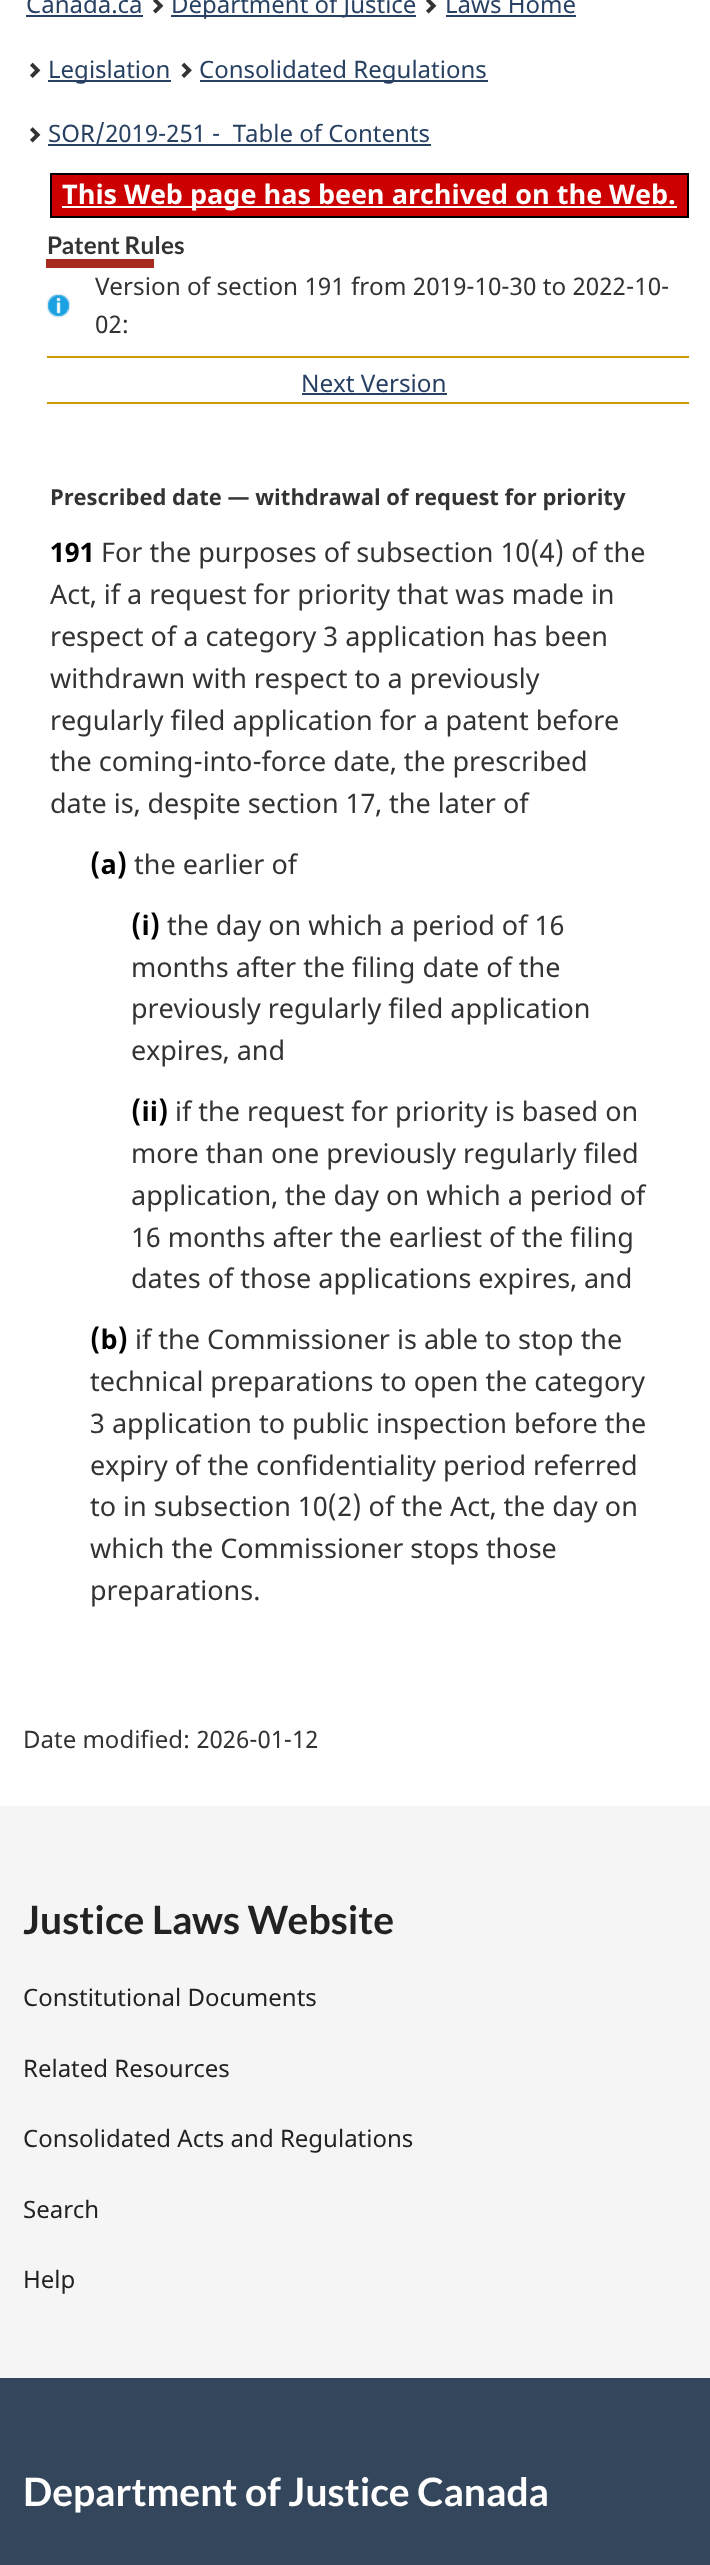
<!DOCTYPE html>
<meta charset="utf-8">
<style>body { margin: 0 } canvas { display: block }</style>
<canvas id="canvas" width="710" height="2565"></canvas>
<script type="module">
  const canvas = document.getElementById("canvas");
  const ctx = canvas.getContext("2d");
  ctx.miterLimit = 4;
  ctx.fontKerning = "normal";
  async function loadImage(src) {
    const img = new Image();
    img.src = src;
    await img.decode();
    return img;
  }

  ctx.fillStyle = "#ffffff";
  ctx.fillRect(0, 0, 710, 2565);
  ctx.font = "24px Noto Sans";
  ctx.fillStyle = "#284162";
  ctx.fillText("Canada.ca", 26, 13);
  ctx.fillRect(26, 15, 117, 2);
  ctx.drawImage(await loadImage("img1.png"), 153, 0, 11, 14);
  ctx.fillRect(171, 15, 245, 2);
  ctx.fillText("Department of Justice", 171, 13);
  ctx.drawImage(await loadImage("img1.png"), 426, 0, 11, 14);
  ctx.fillText("Laws Home", 445, 13);
  ctx.fillRect(446, 15, 130, 2);
  ctx.drawImage(await loadImage("img2.png"), 30, 62, 11, 16);
  ctx.fillRect(48, 80, 123, 2);
  ctx.fillText("Legislation", 48, 78);
  ctx.drawImage(await loadImage("img3.png"), 181, 62, 11, 16);
  ctx.fillRect(200, 80, 288, 2);
  ctx.fillText("Consolidated Regulations", 199, 78);
  ctx.drawImage(await loadImage("img4.png"), 30, 127, 11, 16);
  ctx.fillRect(48, 144, 383, 2);
  ctx.fillText("SOR/2019-251 -  Table of Contents", 48, 142);
  ctx.fillStyle = "#cc0000";
  ctx.beginPath();
  ctx.rect(51, 174, 637, 43);
  ctx.fill();
  ctx.strokeStyle = "#000000";
  ctx.lineWidth = 2;
  ctx.stroke();
  ctx.fillStyle = "#ffffff";
  ctx.fillRect(62, 206, 615, 2);
  ctx.font = "bold 27px Noto Sans";
  ctx.fillText("This Web page has been archived on the Web.", 62, 204);
  ctx.fillStyle = "#a62a1e";
  ctx.fillRect(46, 259, 108, 9);
  ctx.font = "bold 24.3px Lato";
  ctx.fillStyle = "#333333";
  ctx.fillText("Patent Rules", 47, 254);
  ctx.drawImage(await loadImage("img5.png"), 46, 293, 25, 25);
  ctx.font = "24.3px Noto Sans";
  ctx.fillText("Version of section 191 from 2019-10-30 to 2022-10-", 95, 295);
  ctx.fillText("02:", 95, 333);
  ctx.fillStyle = "#cc9900";
  ctx.fillRect(47, 356, 642, 2);
  ctx.fillRect(47, 402, 642, 2);
  ctx.fillStyle = "#284162";
  ctx.fillText("Next Version", 301, 392);
  ctx.fillRect(302, 393, 145, 2);
  ctx.font = "bold 22px Noto Sans";
  ctx.fillStyle = "#333333";
  ctx.fillText("Prescribed date — withdrawal of request for priority", 50, 505);
  ctx.font = "bold 27px Noto Sans";
  ctx.fillStyle = "#000000";
  ctx.fillText("191", 50, 562);
  ctx.font = "27px Noto Sans";
  ctx.fillStyle = "#333333";
  ctx.fillText("For the purposes of subsection 10(4) of the", 101, 562);
  ctx.fillText("Act, if a request for priority that was made in", 50, 604);
  ctx.fillText("respect of a category 3 application has been", 50, 646);
  ctx.fillText("withdrawn with respect to a previously", 50, 688);
  ctx.fillText("regularly filed application for a patent before", 50, 730);
  ctx.fillText("the coming-into-force date, the prescribed", 50, 771);
  ctx.fillText("date is, despite section 17, the later of", 50, 813);
  ctx.font = "bold 27px Noto Sans";
  ctx.fillStyle = "#000000";
  ctx.fillText("(a)", 90, 874);
  ctx.font = "27px Noto Sans";
  ctx.fillStyle = "#333333";
  ctx.fillText("the earlier of", 134, 874);
  ctx.font = "bold 27px Noto Sans";
  ctx.fillStyle = "#000000";
  ctx.fillText("(i)", 131, 935);
  ctx.font = "27px Noto Sans";
  ctx.fillStyle = "#333333";
  ctx.fillText("the day on which a period of 16", 167, 935);
  ctx.fillText("months after the filing date of the", 131, 977);
  ctx.fillText("previously regularly filed application", 131, 1018);
  ctx.fillText("expires, and", 131, 1060);
  ctx.font = "bold 27px Noto Sans";
  ctx.fillStyle = "#000000";
  ctx.fillText("(ii)", 131, 1121);
  ctx.font = "27px Noto Sans";
  ctx.fillStyle = "#333333";
  ctx.fillText("if the request for priority is based on", 175, 1121);
  ctx.fillText("more than one previously regularly filed", 131, 1163);
  ctx.fillText("application, the day on which a period of", 131, 1205);
  ctx.fillText("16 months after the earliest of the filing", 131, 1247);
  ctx.fillText("dates of those applications expires, and", 131, 1288);
  ctx.font = "bold 27px Noto Sans";
  ctx.fillStyle = "#000000";
  ctx.fillText("(b)", 90, 1349);
  ctx.font = "27px Noto Sans";
  ctx.fillStyle = "#333333";
  ctx.fillText("if the Commissioner is able to stop the", 135, 1349);
  ctx.fillText("technical preparations to open the category", 90, 1391);
  ctx.fillText("3 application to public inspection before the", 90, 1433);
  ctx.fillText("expiry of the confidentiality period referred", 90, 1475);
  ctx.fillText("to in subsection 10(2) of the Act, the day on", 90, 1516);
  ctx.fillText("which the Commissioner stops those", 90, 1558);
  ctx.fillText("preparations.", 90, 1600);
  ctx.font = "24px Noto Sans";
  ctx.fillText("Date modified: 2026-01-12", 23, 1748);
  ctx.fillStyle = "#f5f5f5";
  ctx.fillRect(0, 1806, 710, 572);
  ctx.font = "bold 39px Lato";
  ctx.fillStyle = "#222222";
  ctx.fillText("Justice Laws Website", 23, 1934);
  ctx.font = "24px Noto Sans";
  ctx.fillText("Constitutional Documents", 23, 2006);
  ctx.fillText("Related Resources", 23, 2077);
  ctx.fillText("Consolidated Acts and Regulations", 23, 2147);
  ctx.fillText("Search", 23, 2218);
  ctx.fillText("Help", 23, 2288);
  ctx.fillStyle = "#33465c";
  ctx.fillRect(0, 2378, 710, 187);
  ctx.font = "bold 39px Lato";
  ctx.fillStyle = "#ffffff";
  ctx.fillText("Department of Justice Canada", 23, 2506);
</script>
